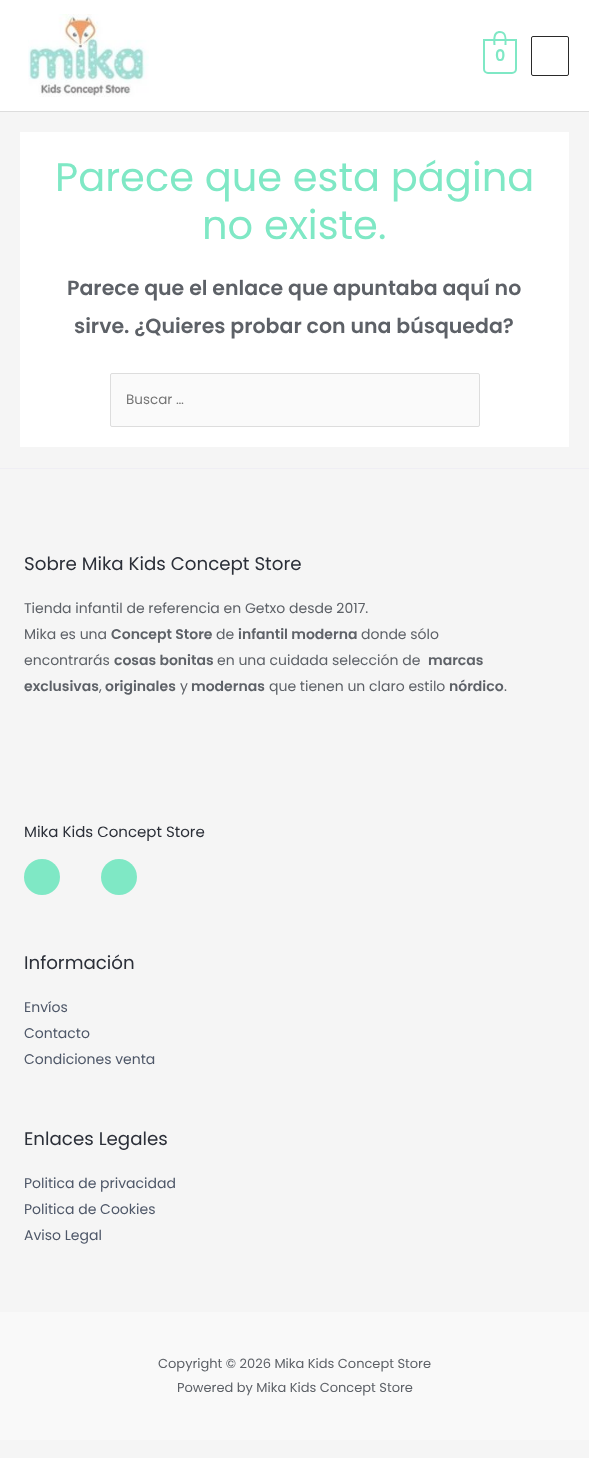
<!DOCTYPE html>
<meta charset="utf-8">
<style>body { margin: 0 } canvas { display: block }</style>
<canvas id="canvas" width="589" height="1458"></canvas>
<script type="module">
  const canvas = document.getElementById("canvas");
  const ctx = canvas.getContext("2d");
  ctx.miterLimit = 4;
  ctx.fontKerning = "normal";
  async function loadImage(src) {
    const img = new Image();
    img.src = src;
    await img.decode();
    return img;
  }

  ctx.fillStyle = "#f5f5f5";
  ctx.fillRect(0, 0, 589, 1458);
  ctx.fillStyle = "#ffffff";
  ctx.fillRect(0, 0, 589, 111);
  ctx.fillStyle = "#dddddd";
  ctx.fillRect(0, 111, 589, 1);
  ctx.drawImage(await loadImage("img1.png"), 28, 14, 121, 83);
  ctx.beginPath();
  ctx.roundRect(484, 40, 32, 33, [0, 0, 4, 4]);
  ctx.strokeStyle = "#7fe8c5";
  ctx.lineWidth = 2;
  ctx.stroke();
  ctx.fillStyle = "#7fe8c5";
  ctx.beginPath();
  ctx.moveTo(500, 31);
  ctx.bezierCurveTo(507.5, 31, 506.5, 40, 506.5, 45);
  ctx.lineTo(493.5, 45);
  ctx.bezierCurveTo(493.5, 40, 492, 31, 500, 31);
  ctx.closePath();
  ctx.moveTo(500, 33);
  ctx.bezierCurveTo(506, 33, 504.5, 41, 504.5, 45);
  ctx.lineTo(495.5, 45);
  ctx.bezierCurveTo(495.5, 41, 494, 33, 500, 33);
  ctx.closePath();
  ctx.fill("evenodd");
  ctx.font = "600 16px Poppins";
  ctx.fillText("0", 495, 61);
  ctx.beginPath();
  ctx.roundRect(531.5, 36.5, 37, 39, 1.5);
  ctx.strokeStyle = "#2a2a2a";
  ctx.lineWidth = 1;
  ctx.stroke();
  ctx.fillStyle = "#ffffff";
  ctx.fillRect(20, 132, 549, 315);
  ctx.font = "40px Poppins";
  ctx.fillStyle = "#7fe8c5";
  ctx.fillText("Parece que esta página", 55, 191);
  ctx.fillText("no existe.", 202, 239);
  ctx.font = "600 20.5px Poppins";
  ctx.fillStyle = "#5d6167";
  ctx.fillText("Parece que el enlace que apuntaba aquí no", 67, 295);
  ctx.fillText("sirve. ¿Quieres probar con una búsqueda?", 74, 333);
  ctx.fillStyle = "#fafafa";
  ctx.beginPath();
  ctx.roundRect(110.5, 373.5, 369, 53, 1.5);
  ctx.fill();
  ctx.strokeStyle = "#dddddd";
  ctx.stroke();
  ctx.font = "13.5px Poppins";
  ctx.fillStyle = "#757575";
  ctx.fillText("Buscar …", 126, 404);
  ctx.fillStyle = "#efeef4";
  ctx.fillRect(0, 468, 589, 1);
  ctx.font = "18.25px Poppins";
  ctx.fillStyle = "#2b2f38";
  ctx.fillText("Sobre Mika Kids Concept Store", 24, 570);
  ctx.font = "14px Poppins";
  ctx.fillStyle = "#5d6167";
  ctx.fillText("Tienda infantil de referencia en Getxo desde 2017.", 24, 613);
  ctx.fillText("Mika es una", 24, 639);
  ctx.font = "600 14px Poppins";
  ctx.fillText("Concept Store", 111, 639);
  ctx.font = "14px Poppins";
  ctx.fillText("de", 216, 639);
  ctx.font = "600 14px Poppins";
  ctx.fillText("infantil moderna", 238, 639);
  ctx.font = "14px Poppins";
  ctx.fillText("donde sólo", 361, 639);
  ctx.fillText("encontrarás", 24, 665);
  ctx.font = "600 14px Poppins";
  ctx.fillText("cosas bonitas", 114, 665);
  ctx.font = "14px Poppins";
  ctx.fillText("en una cuidada selección de", 217, 665);
  ctx.font = "600 14px Poppins";
  ctx.fillText("marcas", 428, 665);
  ctx.fillText("exclusivas", 24, 691);
  ctx.font = "14px Poppins";
  ctx.fillText(",", 99, 691);
  ctx.font = "600 14px Poppins";
  ctx.fillText("originales", 105, 691);
  ctx.font = "14px Poppins";
  ctx.fillText("y", 180, 691);
  ctx.font = "600 14px Poppins";
  ctx.fillText("modernas", 191, 691);
  ctx.font = "14px Poppins";
  ctx.fillText("que tienen un claro estilo", 269, 691);
  ctx.font = "600 14px Poppins";
  ctx.fillText("nórdico", 449, 691);
  ctx.font = "14px Poppins";
  ctx.fillText(".", 504, 691);
  ctx.font = "15px Poppins";
  ctx.fillStyle = "#2b2f38";
  ctx.fillText("Mika Kids Concept Store", 24, 837);
  ctx.fillStyle = "#7fe8c5";
  ctx.beginPath();
  ctx.arc(42, 877, 18, 0, Math.PI * 2);
  ctx.fill();
  ctx.beginPath();
  ctx.arc(119, 877, 18, 0, Math.PI * 2);
  ctx.fill();
  ctx.font = "18.25px Poppins";
  ctx.fillStyle = "#2b2f38";
  ctx.fillText("Información", 24, 969);
  ctx.font = "14px Poppins";
  ctx.fillStyle = "#4e5768";
  ctx.fillText("Envíos", 24, 1012);
  ctx.fillText("Contacto", 24, 1038);
  ctx.fillText("Condiciones venta", 24, 1064);
  ctx.font = "18.25px Poppins";
  ctx.fillStyle = "#2b2f38";
  ctx.fillText("Enlaces Legales", 24, 1145);
  ctx.font = "14px Poppins";
  ctx.fillStyle = "#4e5768";
  ctx.fillText("Politica de privacidad", 24, 1188);
  ctx.fillText("Politica de Cookies", 24, 1214);
  ctx.fillText("Aviso Legal", 24, 1240);
  ctx.fillStyle = "#f9f9f9";
  ctx.fillRect(0, 1312, 589, 128);
  ctx.font = "13px Poppins";
  ctx.fillStyle = "#5d6167";
  ctx.fillText("Copyright © 2026 Mika Kids Concept Store", 158, 1368);
  ctx.fillText("Powered by Mika Kids Concept Store", 177, 1392);
</script>
